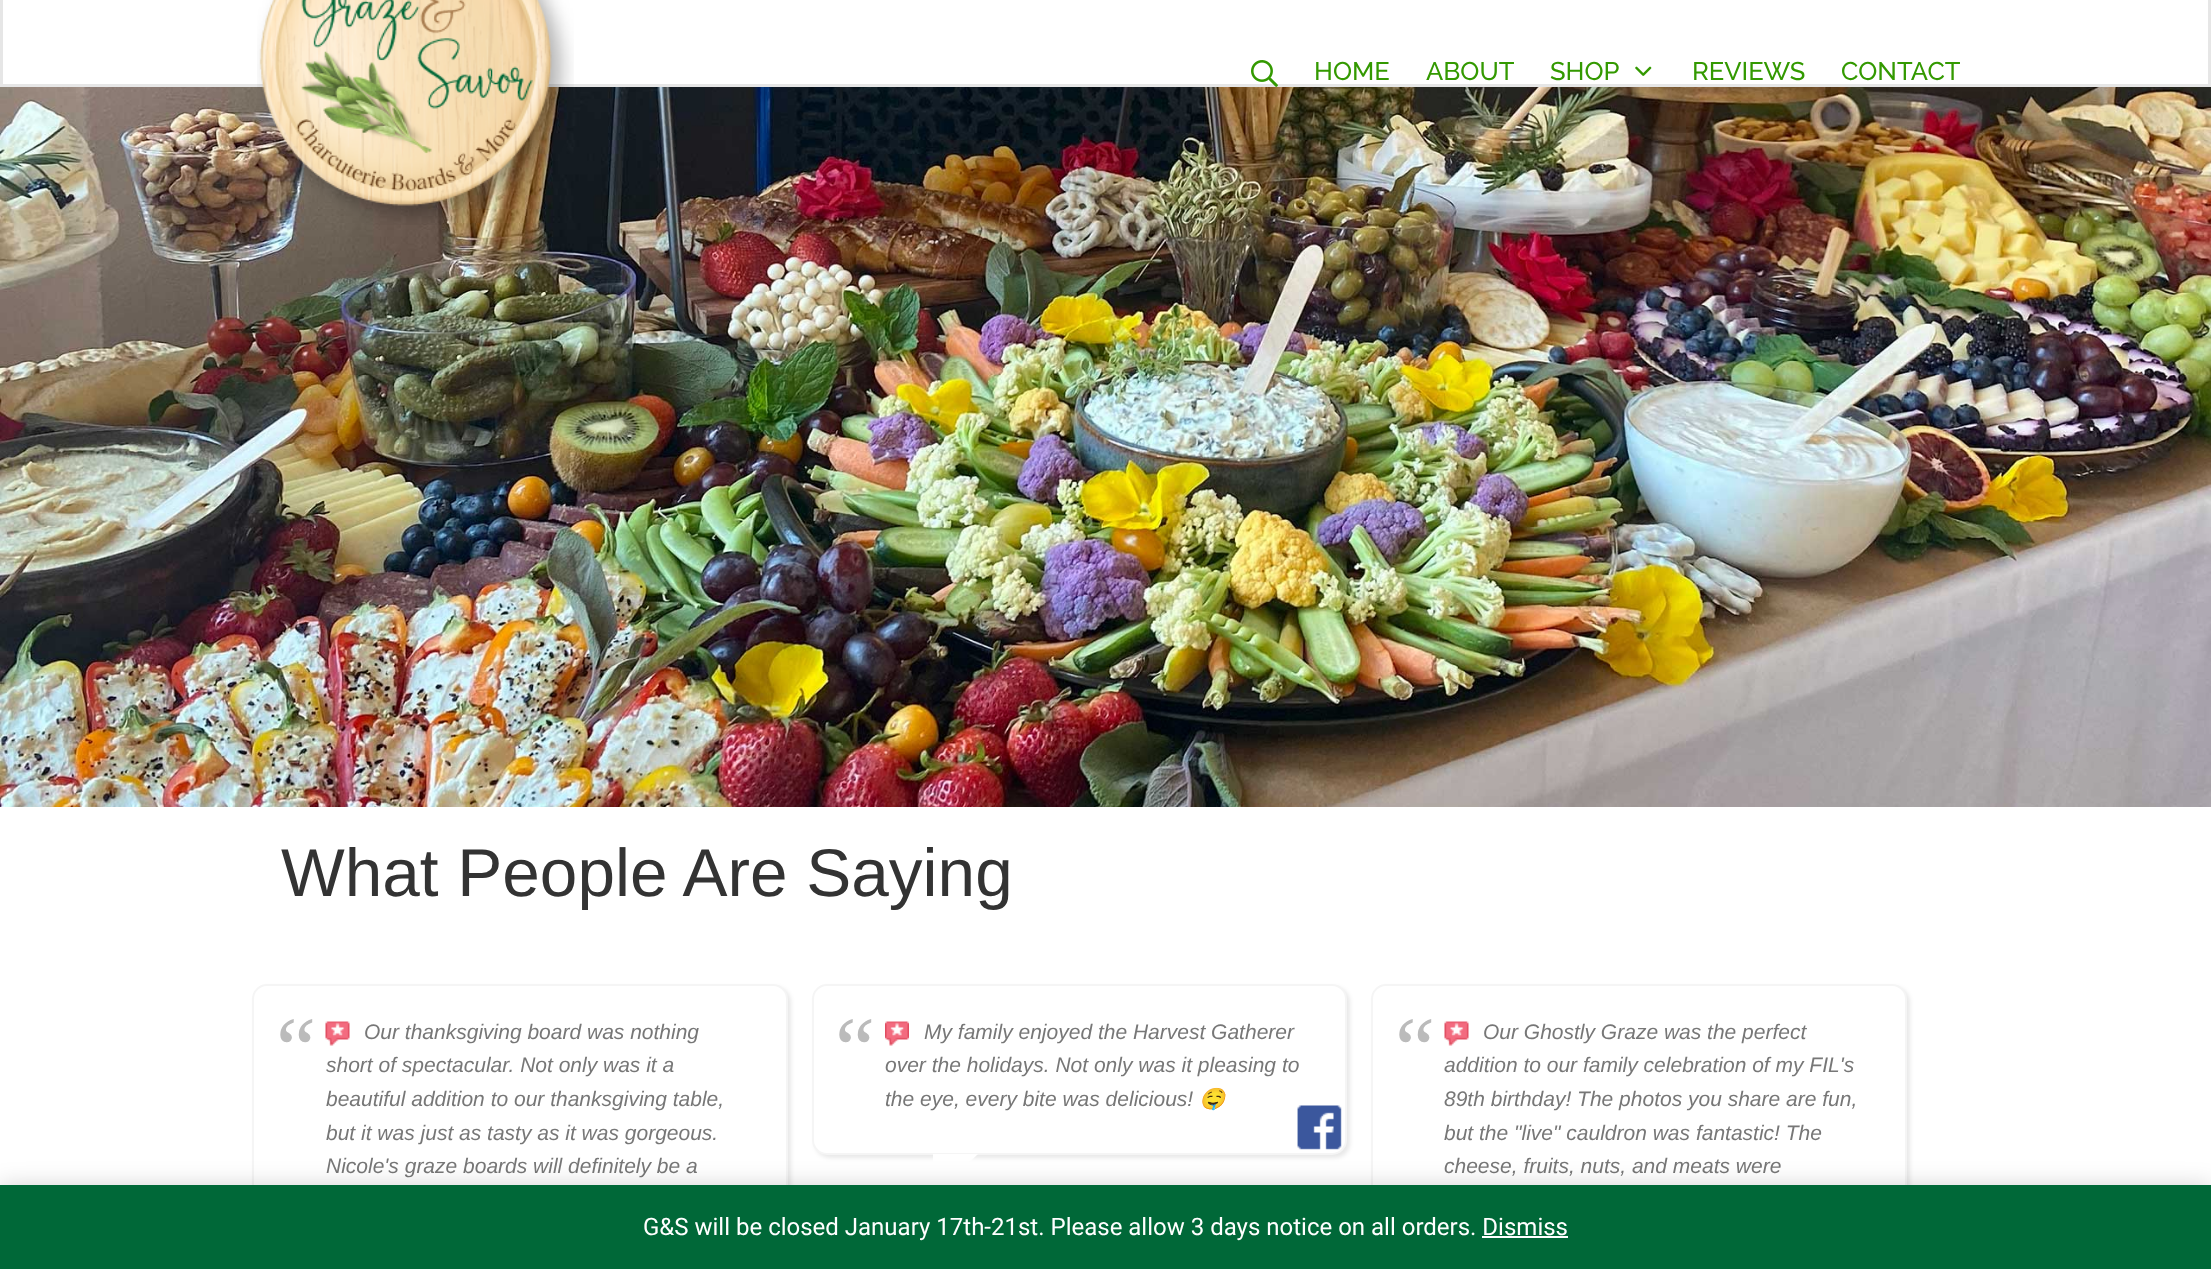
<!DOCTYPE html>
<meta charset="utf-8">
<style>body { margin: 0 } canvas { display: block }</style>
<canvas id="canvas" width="2211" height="1269"></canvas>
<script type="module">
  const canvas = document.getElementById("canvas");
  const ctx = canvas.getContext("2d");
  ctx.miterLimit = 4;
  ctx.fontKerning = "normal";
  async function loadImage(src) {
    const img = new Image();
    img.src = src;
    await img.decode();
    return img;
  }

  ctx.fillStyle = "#ffffff";
  ctx.fillRect(0, 0, 2211, 1269);
  ctx.strokeStyle = "#e6e6e6";
  ctx.lineWidth = 3;
  ctx.strokeRect(1.5, -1.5, 2208, 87);
  ctx.drawImage(await loadImage("img4.png"), 0, 87, 2211, 720);
  ctx.drawImage(await loadImage("img1.png"), 257, 0, 317, 225);
  ctx.drawImage(await loadImage("img2.png"), 1251, 60, 27, 27);
  ctx.font = "500 25.5px Raleway";
  ctx.fillStyle = "#339900";
  ctx.fillText("HOME", 1314, 80);
  ctx.fillText("ABOUT", 1426, 80);
  ctx.fillText("SHOP", 1550, 80);
  ctx.drawImage(await loadImage("img3.png"), 1635, 66, 17, 10);
  ctx.fillText("REVIEWS", 1692, 80);
  ctx.fillText("CONTACT", 1841, 80);
  ctx.font = "67.5px Liberation Sans";
  ctx.fillStyle = "#333333";
  ctx.fillText("What People Are Saying", 281, 896);
  ctx.fillStyle = "rgba(0, 0, 0, 0.09)";
  ctx.filter = "blur(2px)";
  ctx.beginPath();
  ctx.roundRect(255, 987, 536, 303, 15);
  ctx.fill();
  ctx.filter = "none";
  ctx.fillStyle = "#ffffff";
  ctx.beginPath();
  ctx.roundRect(253, 985, 534, 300, 14);
  ctx.fill();
  ctx.strokeStyle = "#f5f5f5";
  ctx.lineWidth = 2;
  ctx.stroke();
  ctx.font = "90px Liberation Serif";
  ctx.fillStyle = "#bbbbbb";
  ctx.fillText("“", 276, 1079);
  ctx.drawImage(await loadImage("img5.png"), 325, 1021, 25, 25);
  ctx.font = "italic 21px Liberation Sans";
  ctx.fillStyle = "#777777";
  ctx.fillText("Our thanksgiving board was nothing", 364, 1039);
  ctx.fillText("short of spectacular. Not only was it a", 326, 1072);
  ctx.fillText("beautiful addition to our thanksgiving table,", 326, 1106);
  ctx.fillText("but it was just as tasty as it was gorgeous.", 326, 1140);
  ctx.fillText("Nicole's graze boards will definitely be a", 326, 1173);
  ctx.fillStyle = "rgba(0, 0, 0, 0.09)";
  ctx.filter = "blur(2px)";
  ctx.beginPath();
  ctx.roundRect(815, 987, 535, 171, 15);
  ctx.fill();
  ctx.filter = "none";
  ctx.fillStyle = "#ffffff";
  ctx.beginPath();
  ctx.roundRect(813, 985, 533, 169, 14);
  ctx.fill();
  ctx.stroke();
  ctx.font = "90px Liberation Serif";
  ctx.fillStyle = "#bbbbbb";
  ctx.fillText("“", 835, 1079);
  ctx.drawImage(await loadImage("img6.png"), 885, 1021, 24, 25);
  ctx.font = "italic 21px Liberation Sans";
  ctx.fillStyle = "#777777";
  ctx.fillText("My family enjoyed the Harvest Gatherer", 924, 1039);
  ctx.fillText("over the holidays. Not only was it pleasing to", 885, 1072);
  ctx.fillText("the eye, every bite was delicious!", 885, 1106);
  ctx.font = "italic 21px Noto Color Emoji";
  ctx.fillText("🤤", 1199, 1106);
  ctx.drawImage(await loadImage("img7.png"), 1297, 1105, 45, 45);
  ctx.fillStyle = "#ffffff";
  ctx.beginPath();
  ctx.moveTo(933, 1154);
  ctx.lineTo(978, 1154);
  ctx.lineTo(933, 1198);
  ctx.closePath();
  ctx.fill();
  ctx.fillStyle = "rgba(0, 0, 0, 0.09)";
  ctx.filter = "blur(2px)";
  ctx.beginPath();
  ctx.roundRect(1374, 987, 536, 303, 15);
  ctx.fill();
  ctx.filter = "none";
  ctx.fillStyle = "#ffffff";
  ctx.beginPath();
  ctx.roundRect(1372, 985, 534, 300, 14);
  ctx.fill();
  ctx.stroke();
  ctx.font = "90px Liberation Serif";
  ctx.fillStyle = "#bbbbbb";
  ctx.fillText("“", 1395, 1079);
  ctx.drawImage(await loadImage("img8.png"), 1444, 1021, 25, 25);
  ctx.font = "italic 21px Liberation Sans";
  ctx.fillStyle = "#777777";
  ctx.fillText("Our Ghostly Graze was the perfect", 1483, 1039);
  ctx.fillText("addition to our family celebration of my FIL's", 1444, 1072);
  ctx.fillText("89th birthday! The photos you share are fun,", 1444, 1106);
  ctx.fillText("but the \"live\" cauldron was fantastic! The", 1444, 1140);
  ctx.fillText("cheese, fruits, nuts, and meats were", 1444, 1173);
  ctx.fillStyle = "rgba(0, 0, 0, 0.2)";
  ctx.filter = "blur(12px)";
  ctx.beginPath();
  ctx.rect(0, 1187, 2211, 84);
  ctx.fill();
  ctx.filter = "none";
  ctx.fillStyle = "#006838";
  ctx.fillRect(0, 1185, 2211, 84);
  ctx.font = "24px Roboto";
  ctx.fillStyle = "#ffffff";
  ctx.fillText("G&S will be closed January 17th-21st. Please allow 3 days notice on all orders. Dismiss", 643, 1235);
  ctx.fillRect(1482, 1236, 86, 2);
</script>
